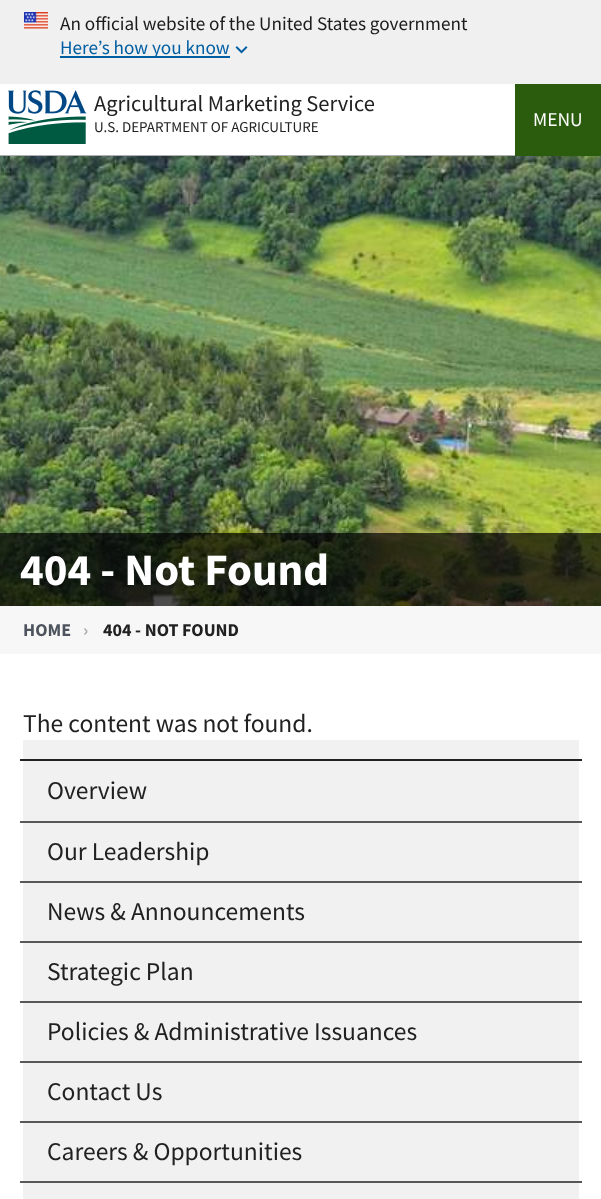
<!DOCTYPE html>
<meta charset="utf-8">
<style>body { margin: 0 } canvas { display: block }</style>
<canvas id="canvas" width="601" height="1199"></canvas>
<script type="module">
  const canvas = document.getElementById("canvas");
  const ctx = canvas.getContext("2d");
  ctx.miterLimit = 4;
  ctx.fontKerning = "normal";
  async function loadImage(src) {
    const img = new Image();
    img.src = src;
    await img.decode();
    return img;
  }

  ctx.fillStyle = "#ffffff";
  ctx.fillRect(0, 0, 601, 1199);
  ctx.fillStyle = "#f0f0f0";
  ctx.fillRect(0, 0, 601, 84);
  ctx.drawImage(await loadImage("img1.png"), 24, 12, 24, 17);
  ctx.font = "19.2px Source Sans Pro";
  ctx.fillStyle = "#1b1b1b";
  ctx.fillText("An official website of the United States government", 60, 30);
  ctx.fillStyle = "#005ea2";
  ctx.fillRect(60, 56, 170, 2);
  ctx.fillText("Here’s how you know", 60, 54);
  ctx.drawImage(await loadImage("img2.png"), 235, 46, 13, 8);
  ctx.fillStyle = "#aeb0b5";
  ctx.fillRect(0, 155, 515, 1);
  ctx.drawImage(await loadImage("img3.png"), 8, 90, 79, 54);
  ctx.font = "22.5px Source Sans Pro";
  ctx.fillStyle = "#212121";
  ctx.fillText("Agricultural Marketing Service", 94, 111);
  ctx.font = "15px Source Sans Pro";
  ctx.fillText("U.S. DEPARTMENT OF AGRICULTURE", 94, 132);
  ctx.fillStyle = "#2b5c0d";
  ctx.fillRect(515, 84, 86, 72);
  ctx.font = "19.5px Source Sans Pro";
  ctx.fillStyle = "#ffffff";
  ctx.fillText("MENU", 533, 126);
  ctx.drawImage(await loadImage("img4.png"), 0, 156, 601, 450);
  ctx.fillStyle = "rgba(0, 0, 0, 0.7)";
  ctx.fillRect(0, 533, 601, 73);
  ctx.font = "bold 45px Source Sans Pro";
  ctx.fillStyle = "#ffffff";
  ctx.fillText("404 - Not Found", 20, 585);
  ctx.fillStyle = "#f7f7f7";
  ctx.fillRect(0, 606, 601, 48);
  ctx.font = "bold 18px Source Sans Pro";
  ctx.fillStyle = "#4e545e";
  ctx.fillText("HOME", 23, 636);
  ctx.fillStyle = "#aeb0b5";
  ctx.fillText("›", 83, 636);
  ctx.fillStyle = "#212121";
  ctx.fillText("404 - NOT FOUND", 103, 636);
  ctx.font = "25.5px Source Sans Pro";
  ctx.fillText("The content was not found.", 23, 732);
  ctx.fillStyle = "#f1f1f1";
  ctx.fillRect(23, 740, 556, 459);
  ctx.fillStyle = "#212121";
  ctx.fillRect(20, 759, 562, 2);
  ctx.fillText("Overview", 47, 799);
  ctx.fillStyle = "#575757";
  ctx.fillRect(20, 821, 562, 2);
  ctx.fillStyle = "#212121";
  ctx.fillText("Our Leadership", 47, 860);
  ctx.fillStyle = "#575757";
  ctx.fillRect(20, 881, 562, 2);
  ctx.fillStyle = "#212121";
  ctx.fillText("News & Announcements", 47, 920);
  ctx.fillStyle = "#575757";
  ctx.fillRect(20, 941, 562, 2);
  ctx.fillStyle = "#212121";
  ctx.fillText("Strategic Plan", 47, 980);
  ctx.fillStyle = "#575757";
  ctx.fillRect(20, 1001, 562, 2);
  ctx.fillStyle = "#212121";
  ctx.fillText("Policies & Administrative Issuances", 47, 1040);
  ctx.fillStyle = "#575757";
  ctx.fillRect(20, 1061, 562, 2);
  ctx.fillStyle = "#212121";
  ctx.fillText("Contact Us", 47, 1100);
  ctx.fillStyle = "#575757";
  ctx.fillRect(20, 1121, 562, 2);
  ctx.fillStyle = "#212121";
  ctx.fillText("Careers & Opportunities", 47, 1160);
  ctx.fillStyle = "#575757";
  ctx.fillRect(20, 1181, 562, 2);
</script>
